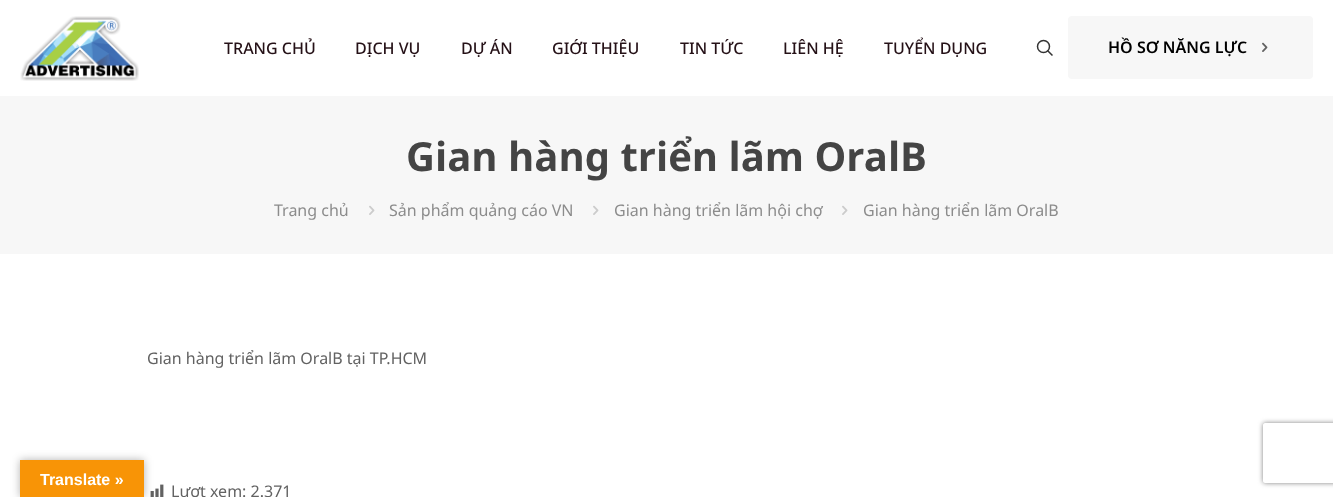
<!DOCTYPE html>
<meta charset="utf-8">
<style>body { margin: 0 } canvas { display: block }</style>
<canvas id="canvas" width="1333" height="497"></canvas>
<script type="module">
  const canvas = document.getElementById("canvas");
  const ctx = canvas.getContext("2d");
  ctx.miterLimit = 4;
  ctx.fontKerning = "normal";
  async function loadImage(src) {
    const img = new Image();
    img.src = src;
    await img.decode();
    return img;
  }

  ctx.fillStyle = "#ffffff";
  ctx.fillRect(0, 0, 1333, 497);
  ctx.drawImage(await loadImage("img4.png"), 150, 484, 14, 13);
  ctx.fillStyle = "rgba(0, 0, 0, 0.3)";
  ctx.filter = "blur(4.5px)";
  ctx.beginPath();
  ctx.rect(20, 460, 124, 37);
  ctx.fill();
  ctx.filter = "none";
  ctx.fillStyle = "#f89406";
  ctx.fillRect(20, 460, 124, 37);
  ctx.font = "bold 16px Liberation Sans";
  ctx.fillStyle = "#ffffff";
  ctx.fillText("Translate »", 40, 485);
  ctx.drawImage(await loadImage("img1.png"), 20, 16, 119, 65);
  ctx.font = "500 16px Noto Sans";
  ctx.fillStyle = "#251117";
  ctx.fillText("TRANG CHỦ", 224, 54);
  ctx.fillText("DỊCH VỤ", 355, 54);
  ctx.fillText("DỰ ÁN", 461, 54);
  ctx.fillText("GIỚI THIỆU", 552, 54);
  ctx.fillText("TIN TỨC", 680, 54);
  ctx.fillText("LIÊN HỆ", 783, 54);
  ctx.fillText("TUYỂN DỤNG", 884, 54);
  ctx.beginPath();
  ctx.arc(1043.5, 46.5, 6, 0, Math.PI * 2);
  ctx.strokeStyle = "#333333";
  ctx.lineWidth = 1.5;
  ctx.stroke();
  ctx.beginPath();
  ctx.moveTo(1047.5, 50.5);
  ctx.lineTo(1052.5, 55.5);
  ctx.stroke();
  ctx.fillStyle = "#f7f7f7";
  ctx.beginPath();
  ctx.roundRect(1068, 16, 245, 63, 4);
  ctx.fill();
  ctx.font = "600 16px Noto Sans";
  ctx.fillStyle = "#000000";
  ctx.fillText("HỒ SƠ NĂNG LỰC", 1108, 53);
  ctx.drawImage(await loadImage("img2.png"), 1262, 42, 6, 10);
  ctx.fillStyle = "#f7f7f7";
  ctx.fillRect(0, 96, 1333, 158);
  ctx.font = "bold 40px Noto Sans";
  ctx.fillStyle = "#444444";
  ctx.fillText("Gian hàng triển lãm OralB", 406, 171);
  ctx.font = "16px Noto Sans";
  ctx.fillStyle = "#8c8c8c";
  ctx.fillText("Trang chủ", 274, 216);
  ctx.drawImage(await loadImage("img3.png"), 369, 205, 6, 10);
  ctx.fillText("Sản phẩm quảng cáo VN", 389, 216);
  ctx.drawImage(await loadImage("img3.png"), 593, 205, 6, 10);
  ctx.fillText("Gian hàng triển lãm hội chợ", 614, 216);
  ctx.drawImage(await loadImage("img3.png"), 842, 205, 6, 10);
  ctx.fillText("Gian hàng triển lãm OralB", 863, 216);
  ctx.fillStyle = "#626262";
  ctx.fillText("Gian hàng triển lãm OralB tại TP.HCM", 147, 364);
  ctx.fillText("Lượt xem: 2.371", 171, 497);
  ctx.save();
  ctx.beginPath();
  ctx.moveTo(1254, 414);
  ctx.lineTo(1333, 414);
  ctx.lineTo(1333, 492);
  ctx.lineTo(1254, 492);
  ctx.closePath();
  ctx.moveTo(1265, 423);
  ctx.lineTo(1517, 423);
  ctx.bezierCurveTo(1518, 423, 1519, 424, 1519, 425);
  ctx.lineTo(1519, 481);
  ctx.bezierCurveTo(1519, 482, 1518, 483, 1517, 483);
  ctx.lineTo(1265, 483);
  ctx.bezierCurveTo(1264, 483, 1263, 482, 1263, 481);
  ctx.lineTo(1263, 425);
  ctx.bezierCurveTo(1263, 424, 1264, 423, 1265, 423);
  ctx.closePath();
  ctx.clip("evenodd");
  ctx.fillStyle = "#808080";
  ctx.filter = "blur(2.5px)";
  ctx.beginPath();
  ctx.roundRect(1263, 423, 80, 60, 2);
  ctx.fill();
  ctx.filter = "none";
  ctx.restore();
</script>
